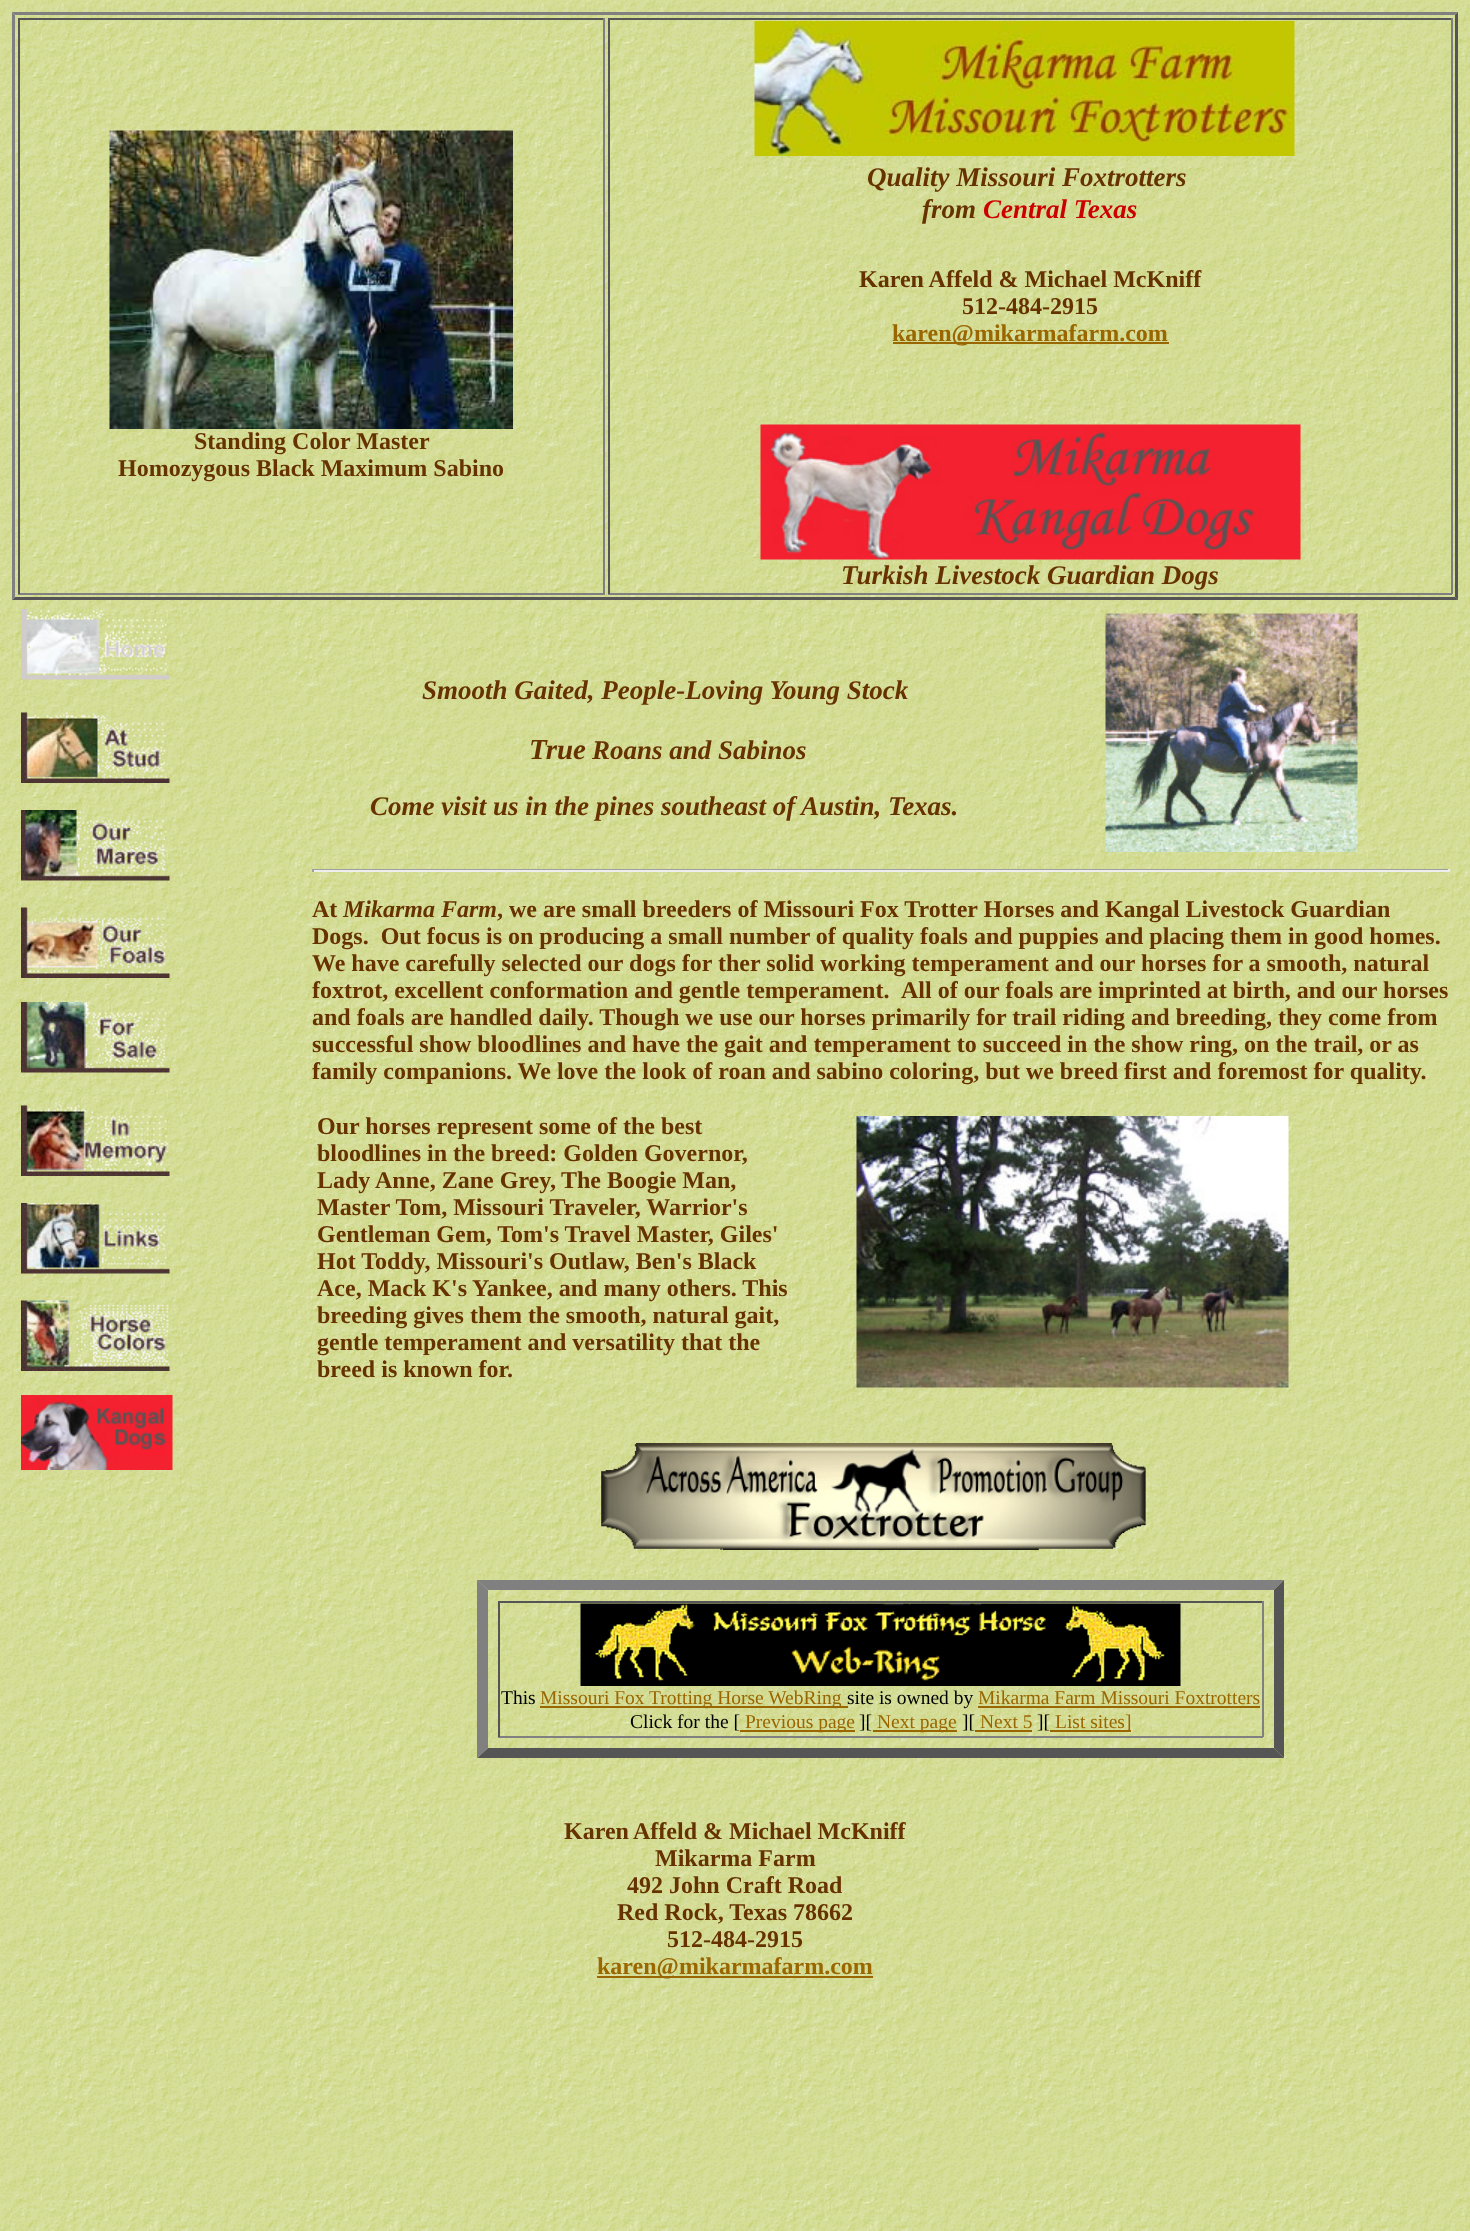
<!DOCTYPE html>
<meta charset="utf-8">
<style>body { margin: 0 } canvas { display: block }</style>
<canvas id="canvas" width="1470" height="2231"></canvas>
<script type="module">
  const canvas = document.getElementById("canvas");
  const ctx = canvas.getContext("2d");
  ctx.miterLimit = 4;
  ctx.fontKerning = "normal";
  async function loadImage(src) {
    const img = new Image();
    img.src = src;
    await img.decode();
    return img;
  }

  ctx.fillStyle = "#ffffff";
  ctx.fillRect(0, 0, 1470, 2231);
  ctx.drawImage(await loadImage("img1.png"), 0, 0, 1470, 2231);
  ctx.fillStyle = "#808080";
  ctx.beginPath();
  ctx.moveTo(12, 12);
  ctx.lineTo(1458, 12);
  ctx.lineTo(1455, 15);
  ctx.lineTo(15, 15);
  ctx.closePath();
  ctx.fill();
  ctx.fillStyle = "#555555";
  ctx.beginPath();
  ctx.moveTo(1458, 12);
  ctx.lineTo(1458, 600);
  ctx.lineTo(1455, 597);
  ctx.lineTo(1455, 15);
  ctx.closePath();
  ctx.fill();
  ctx.beginPath();
  ctx.moveTo(1458, 600);
  ctx.lineTo(12, 600);
  ctx.lineTo(15, 597);
  ctx.lineTo(1455, 597);
  ctx.closePath();
  ctx.fill();
  ctx.fillStyle = "#808080";
  ctx.beginPath();
  ctx.moveTo(12, 600);
  ctx.lineTo(12, 12);
  ctx.lineTo(15, 15);
  ctx.lineTo(15, 597);
  ctx.closePath();
  ctx.fill();
  ctx.fillStyle = "#555555";
  ctx.fillRect(18, 18, 587, 2);
  ctx.fillStyle = "#808080";
  ctx.fillRect(603, 18, 2, 576);
  ctx.fillRect(18, 593, 587, 2);
  ctx.fillStyle = "#555555";
  ctx.fillRect(18, 18, 2, 576);
  ctx.drawImage(await loadImage("img2.png"), 109, 130, 404, 299);
  ctx.font = "bold 24px Liberation Serif";
  ctx.fillStyle = "#663300";
  ctx.fillText("Standing Color Master", 194, 449);
  ctx.fillText("Homozygous Black Maximum Sabino", 118, 476);
  ctx.fillStyle = "#555555";
  ctx.fillRect(608, 18, 844, 2);
  ctx.fillStyle = "#808080";
  ctx.fillRect(1451, 18, 2, 576);
  ctx.fillRect(608, 593, 844, 2);
  ctx.fillStyle = "#555555";
  ctx.fillRect(608, 18, 2, 576);
  ctx.drawImage(await loadImage("img3.png"), 754, 21, 541, 135);
  ctx.font = "italic bold 27px Liberation Serif";
  ctx.fillStyle = "#663300";
  ctx.fillText("Quality Missouri Foxtrotters", 867, 186);
  ctx.fillText("from", 922, 218);
  ctx.fillStyle = "#cc0000";
  ctx.fillText("Central Texas", 983, 218);
  ctx.font = "bold 24px Liberation Serif";
  ctx.fillStyle = "#663300";
  ctx.fillText("Karen Affeld & Michael McKniff", 859, 287);
  ctx.fillText("512-484-2915", 962, 314);
  ctx.fillStyle = "#996600";
  ctx.fillRect(893, 342, 276, 2);
  ctx.fillText("karen@mikarmafarm.com", 892, 341);
  ctx.drawImage(await loadImage("img4.png"), 760, 424, 541, 136);
  ctx.font = "italic bold 27px Liberation Serif";
  ctx.fillStyle = "#663300";
  ctx.fillText("Turkish Livestock Guardian Dogs", 841, 584);
  ctx.drawImage(await loadImage("img5.png"), 21, 609, 149, 71);
  ctx.drawImage(await loadImage("img6.png"), 21, 712, 149, 71);
  ctx.drawImage(await loadImage("img7.png"), 21, 810, 149, 71);
  ctx.drawImage(await loadImage("img8.png"), 21, 907, 149, 71);
  ctx.drawImage(await loadImage("img9.png"), 21, 1002, 149, 71);
  ctx.drawImage(await loadImage("img10.png"), 21, 1105, 149, 71);
  ctx.drawImage(await loadImage("img11.png"), 21, 1203, 149, 71);
  ctx.drawImage(await loadImage("img12.png"), 21, 1300, 149, 71);
  ctx.drawImage(await loadImage("img13.png"), 21, 1395, 152, 75);
  ctx.fillText("Smooth Gaited, People-Loving Young Stock", 422, 699);
  ctx.font = "italic bold 29px Liberation Serif";
  ctx.fillText("True", 529, 759);
  ctx.font = "italic bold 27px Liberation Serif";
  ctx.fillText("Roans and Sabinos", 592, 759);
  ctx.fillText("Come visit us in the pines southeast of Austin, Texas.", 370, 815);
  ctx.drawImage(await loadImage("img14.png"), 1105, 613, 253, 239);
  ctx.fillStyle = "#9f9f9f";
  ctx.fillRect(312, 869, 1137, 1);
  ctx.fillStyle = "#eeeeee";
  ctx.fillRect(1448, 869, 2, 3);
  ctx.fillRect(312, 870, 1137, 2);
  ctx.fillStyle = "#9f9f9f";
  ctx.fillRect(312, 869, 2, 3);
  ctx.font = "bold 24px Liberation Serif";
  ctx.fillStyle = "#663300";
  ctx.fillText("At", 312, 917);
  ctx.font = "italic bold 24px Liberation Serif";
  ctx.fillText("Mikarma Farm", 343, 917);
  ctx.font = "bold 24px Liberation Serif";
  ctx.fillText(", we are small breeders of Missouri Fox Trotter Horses and Kangal Livestock Guardian", 497, 917);
  ctx.fillText("Dogs.  Out focus is on producing a small number of quality foals and puppies and placing them in good homes.", 312, 944);
  ctx.fillText("We have carefully selected our dogs for ther solid working temperament and our horses for a smooth, natural", 312, 971);
  ctx.fillText("foxtrot, excellent conformation and gentle temperament.", 312, 998);
  ctx.fillText("All of our foals are imprinted at birth, and our horses", 901, 998);
  ctx.fillText("and foals are handled daily. Though we use our horses primarily for trail riding and breeding, they come from", 312, 1025);
  ctx.fillText("successful show bloodlines and have the gait and temperament to succeed in the show ring, on the trail, or as", 312, 1052);
  ctx.fillText("family companions. We love the look of roan and sabino coloring, but we breed first and foremost for quality.", 312, 1079);
  ctx.fillText("Our horses represent some of the best", 317, 1134);
  ctx.fillText("bloodlines in the breed: Golden Governor,", 317, 1161);
  ctx.fillText("Lady Anne, Zane Grey,", 317, 1188);
  ctx.fillText("The Boogie Man,", 561, 1188);
  ctx.fillText("Master Tom, Missouri Traveler, Warrior's", 317, 1215);
  ctx.fillText("Gentleman Gem, Tom's Travel Master, Giles'", 317, 1242);
  ctx.fillText("Hot Toddy, Missouri's Outlaw, Ben's Black", 317, 1269);
  ctx.fillText("Ace, Mack K's Yankee, and many others. This", 317, 1296);
  ctx.fillText("breeding gives them the smooth, natural gait,", 317, 1323);
  ctx.fillText("gentle temperament and versatility that the", 317, 1350);
  ctx.fillText("breed is known for.", 317, 1377);
  ctx.drawImage(await loadImage("img15.png"), 856, 1116, 433, 272);
  ctx.drawImage(await loadImage("img16.png"), 601, 1443, 545, 107);
  ctx.fillStyle = "#808080";
  ctx.beginPath();
  ctx.moveTo(477, 1580);
  ctx.lineTo(1284, 1580);
  ctx.lineTo(1274, 1590);
  ctx.lineTo(488, 1590);
  ctx.closePath();
  ctx.fill();
  ctx.fillStyle = "#555555";
  ctx.beginPath();
  ctx.moveTo(1284, 1580);
  ctx.lineTo(1284, 1758);
  ctx.lineTo(1274, 1748);
  ctx.lineTo(1274, 1590);
  ctx.closePath();
  ctx.fill();
  ctx.beginPath();
  ctx.moveTo(1284, 1758);
  ctx.lineTo(477, 1758);
  ctx.lineTo(488, 1748);
  ctx.lineTo(1274, 1748);
  ctx.closePath();
  ctx.fill();
  ctx.fillStyle = "#808080";
  ctx.beginPath();
  ctx.moveTo(477, 1758);
  ctx.lineTo(477, 1580);
  ctx.lineTo(488, 1590);
  ctx.lineTo(488, 1748);
  ctx.closePath();
  ctx.fill();
  ctx.fillStyle = "#555555";
  ctx.fillRect(498, 1601, 765, 2);
  ctx.fillStyle = "#808080";
  ctx.fillRect(1262, 1601, 2, 136);
  ctx.fillRect(498, 1736, 765, 2);
  ctx.fillStyle = "#555555";
  ctx.fillRect(498, 1601, 2, 136);
  ctx.drawImage(await loadImage("img17.png"), 580, 1603, 601, 83);
  ctx.font = "19.5px Liberation Serif";
  ctx.fillStyle = "#000000";
  ctx.fillText("This", 501, 1704);
  ctx.fillStyle = "#996600";
  ctx.fillRect(540, 1706, 308, 2);
  ctx.fillText("Missouri Fox Trotting Horse WebRing", 540, 1704);
  ctx.fillStyle = "#000000";
  ctx.fillText("site is owned by", 847, 1704);
  ctx.fillStyle = "#996600";
  ctx.fillText("Mikarma Farm Missouri Foxtrotters", 978, 1704);
  ctx.fillRect(978, 1706, 282, 2);
  ctx.fillStyle = "#000000";
  ctx.fillText("Click for the [", 630, 1728);
  ctx.fillStyle = "#996600";
  ctx.fillRect(740, 1730, 115, 2);
  ctx.fillText("Previous page", 745, 1728);
  ctx.fillStyle = "#000000";
  ctx.fillText("][", 859, 1728);
  ctx.fillStyle = "#996600";
  ctx.fillRect(873, 1730, 84, 2);
  ctx.fillText("Next page", 877, 1728);
  ctx.fillStyle = "#000000";
  ctx.fillText("][", 962, 1728);
  ctx.fillStyle = "#996600";
  ctx.fillRect(975, 1730, 57, 2);
  ctx.fillText("Next 5", 980, 1728);
  ctx.fillStyle = "#000000";
  ctx.fillText("][", 1037, 1728);
  ctx.fillStyle = "#996600";
  ctx.fillRect(1050, 1730, 81, 2);
  ctx.fillText("List sites]", 1055, 1728);
  ctx.font = "bold 24px Liberation Serif";
  ctx.fillStyle = "#663300";
  ctx.fillText("Karen", 564, 1839);
  ctx.fillText("Affeld & Michael McKniff", 633, 1839);
  ctx.fillText("Mikarma Farm", 655, 1866);
  ctx.fillText("492 John Craft Road", 627, 1893);
  ctx.fillText("Red Rock, Texas 78662", 617, 1920);
  ctx.fillText("512-484-2915", 667, 1947);
  ctx.fillStyle = "#996600";
  ctx.fillRect(597, 1976, 276, 2);
  ctx.fillText("karen@mikarmafarm.com", 597, 1974);
</script>
